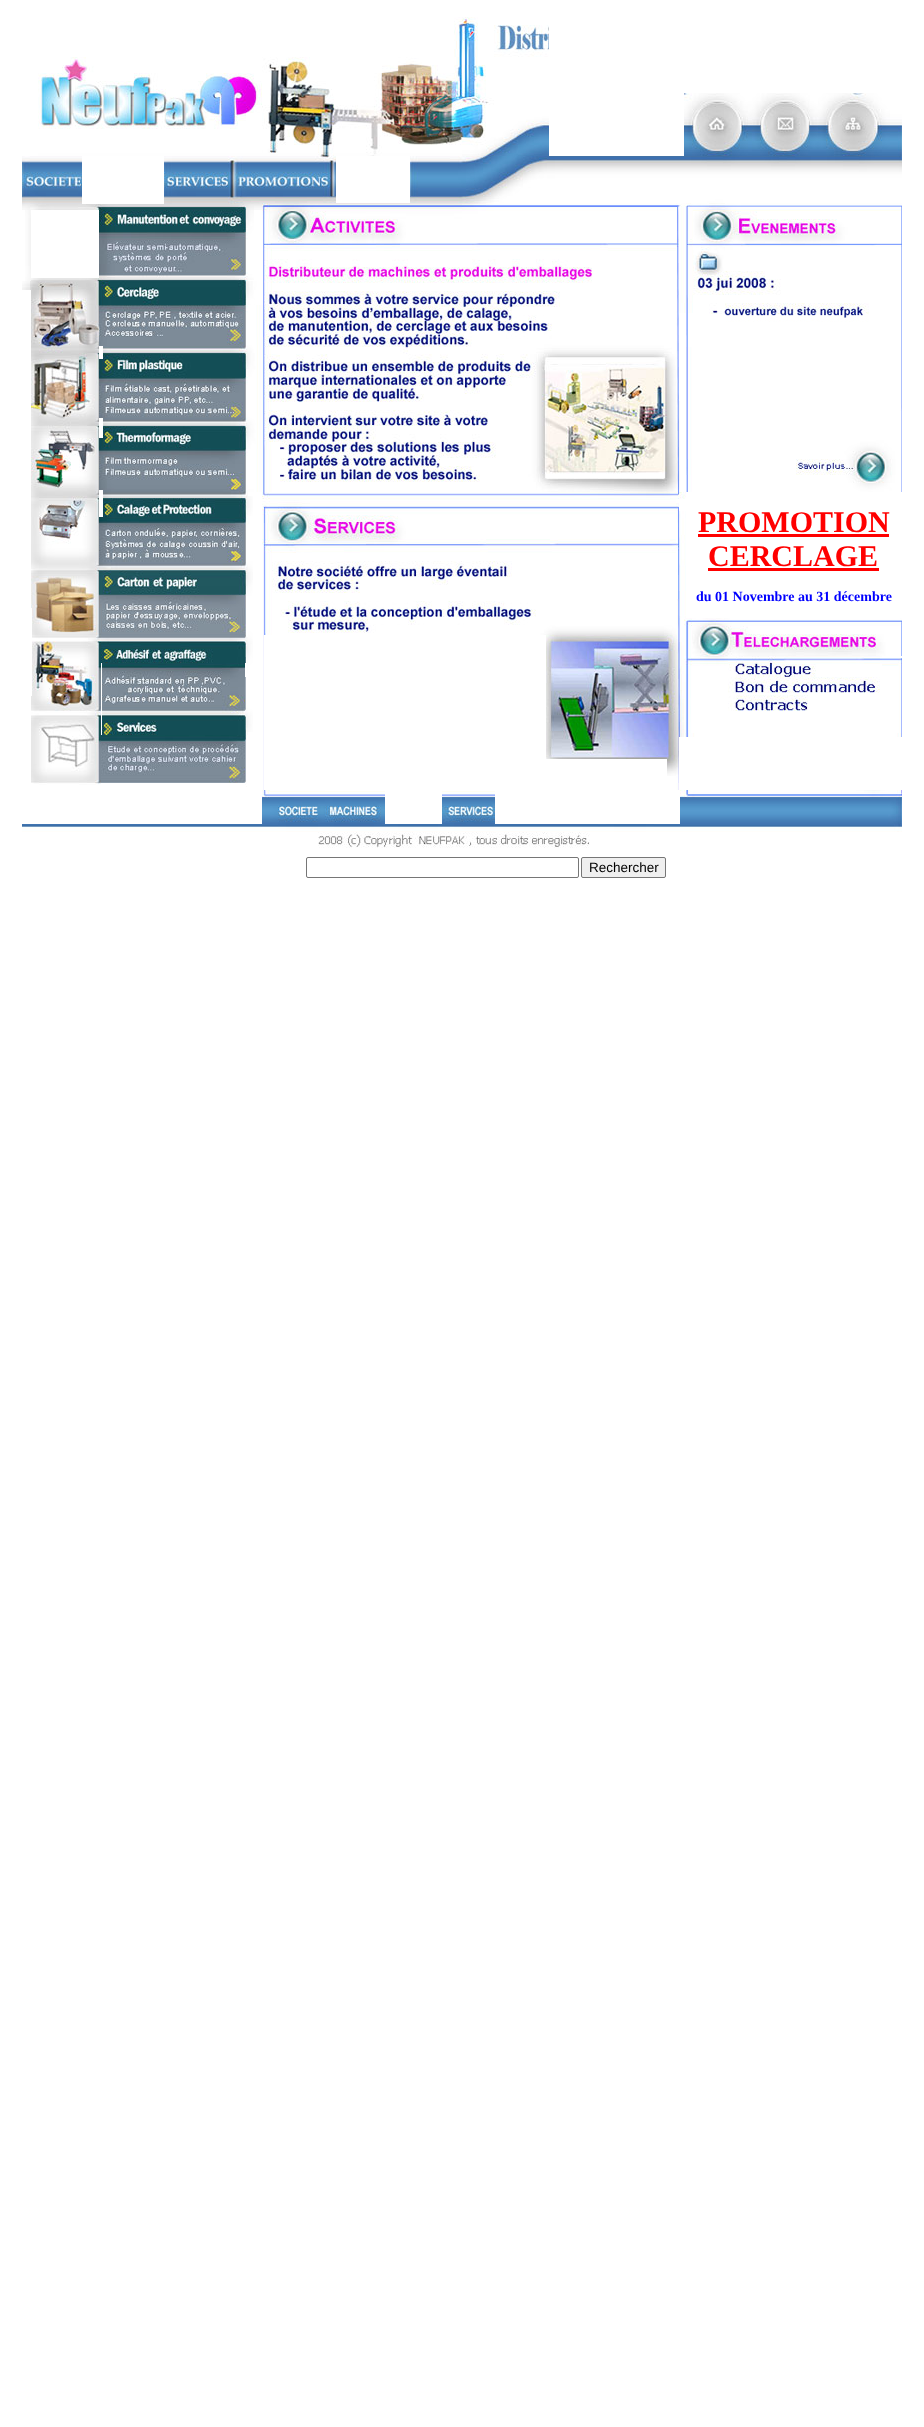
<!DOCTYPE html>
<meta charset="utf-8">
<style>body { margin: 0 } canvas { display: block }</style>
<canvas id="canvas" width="924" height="2427"></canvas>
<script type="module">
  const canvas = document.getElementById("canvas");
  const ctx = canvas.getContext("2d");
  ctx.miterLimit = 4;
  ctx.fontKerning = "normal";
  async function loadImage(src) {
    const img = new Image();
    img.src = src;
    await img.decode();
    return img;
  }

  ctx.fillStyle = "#ffffff";
  ctx.fillRect(0, 0, 924, 2427);
  ctx.drawImage(await loadImage("img1.png"), 38, 17, 511, 139);
  ctx.drawImage(await loadImage("img2.png"), 684, 93, 68, 63);
  ctx.drawImage(await loadImage("img3.png"), 752, 93, 58, 63);
  ctx.drawImage(await loadImage("img4.png"), 810, 93, 92, 63);
  ctx.drawImage(await loadImage("img5.png"), 22, 156, 60, 48);
  ctx.drawImage(await loadImage("img6.png"), 164, 156, 71, 48);
  ctx.drawImage(await loadImage("img7.png"), 235, 156, 101, 47);
  ctx.drawImage(await loadImage("img8.png"), 410, 156, 65, 47);
  ctx.drawImage(await loadImage("img9.png"), 475, 156, 427, 47);
  ctx.drawImage(await loadImage("img10.png"), 22, 204, 240, 6);
  ctx.drawImage(await loadImage("img11.png"), 235, 203, 27, 1);
  ctx.drawImage(await loadImage("img12.png"), 262, 203, 414, 40);
  ctx.drawImage(await loadImage("img13.png"), 676, 203, 17, 4);
  ctx.drawImage(await loadImage("img14.png"), 693, 203, 209, 44);
  ctx.drawImage(await loadImage("img15.png"), 25, 210, 6, 71);
  ctx.drawImage(await loadImage("img16.png"), 99, 210, 149, 22);
  ctx.drawImage(await loadImage("img17.png"), 248, 210, 6, 70);
  ctx.drawImage(await loadImage("img18.png"), 676, 207, 3, 285);
  ctx.drawImage(await loadImage("img19.png"), 679, 207, 14, 106);
  ctx.drawImage(await loadImage("img20.png"), 99, 232, 149, 46);
  ctx.drawImage(await loadImage("img21.png"), 263, 243, 1, 38);
  ctx.drawImage(await loadImage("img22.png"), 264, 243, 412, 111);
  ctx.drawImage(await loadImage("img23.png"), 693, 247, 209, 67);
  ctx.drawImage(await loadImage("img24.png"), 31, 278, 217, 3);
  ctx.drawImage(await loadImage("img25.png"), 22, 281, 242, 6);
  ctx.drawImage(await loadImage("img26.png"), 22, 287, 242, 3);
  ctx.drawImage(await loadImage("img27.png"), 31, 290, 72, 15);
  ctx.drawImage(await loadImage("img28.png"), 103, 290, 161, 15);
  ctx.drawImage(await loadImage("img29.png"), 31, 305, 68, 54);
  ctx.drawImage(await loadImage("img30.png"), 99, 305, 149, 41);
  ctx.drawImage(await loadImage("img31.png"), 248, 305, 16, 187);
  ctx.drawImage(await loadImage("img32.png"), 686, 313, 2, 34);
  ctx.drawImage(await loadImage("img33.png"), 679, 401, 1, 91);
  ctx.drawImage(await loadImage("img34.png"), 725, 314, 177, 33);
  ctx.drawImage(await loadImage("img35.png"), 31, 359, 72, 10);
  ctx.drawImage(await loadImage("img36.png"), 103, 346, 145, 23);
  ctx.drawImage(await loadImage("img37.png"), 264, 354, 278, 138);
  ctx.drawImage(await loadImage("img38.png"), 542, 354, 125, 124);
  ctx.drawImage(await loadImage("img39.png"), 667, 354, 9, 138);
  ctx.drawImage(await loadImage("img40.png"), 686, 347, 216, 145);
  ctx.drawImage(await loadImage("img41.png"), 31, 369, 68, 69);
  ctx.drawImage(await loadImage("img42.png"), 99, 369, 149, 49);
  ctx.drawImage(await loadImage("img43.png"), 31, 438, 72, 10);
  ctx.drawImage(await loadImage("img44.png"), 103, 418, 145, 30);
  ctx.drawImage(await loadImage("img45.png"), 31, 448, 68, 69);
  ctx.drawImage(await loadImage("img46.png"), 99, 448, 149, 42);
  ctx.drawImage(await loadImage("img47.png"), 542, 478, 125, 14);
  ctx.drawImage(await loadImage("img48.png"), 103, 490, 145, 27);
  ctx.drawImage(await loadImage("img49.png"), 262, 499, 414, 46);
  ctx.drawImage(await loadImage("img50.png"), 676, 503, 3, 287);
  ctx.drawImage(await loadImage("img51.png"), 679, 511, 7, 107);
  ctx.drawImage(await loadImage("img52.png"), 248, 496, 5, 236);
  ctx.drawImage(await loadImage("img53.png"), 262, 492, 424, 7);
  ctx.font = "bold 30px Liberation Serif";
  ctx.fillStyle = "#ff0000";
  ctx.fillText("PROMOTION", 698, 532);
  ctx.fillRect(698, 534, 191, 3);
  ctx.fillText("CERCLAGE", 708, 566);
  ctx.fillRect(708, 568, 171, 3);
  ctx.font = "bold 14px Liberation Serif";
  ctx.fillStyle = "#0000ff";
  ctx.fillText("du 01 Novembre au 31 décembre", 696, 601);
  ctx.drawImage(await loadImage("img54.png"), 31, 517, 68, 11);
  ctx.drawImage(await loadImage("img55.png"), 99, 517, 149, 45);
  ctx.drawImage(await loadImage("img56.png"), 31, 528, 68, 68);
  ctx.drawImage(await loadImage("img57.png"), 99, 562, 4, 34);
  ctx.drawImage(await loadImage("img58.png"), 103, 562, 145, 34);
  ctx.drawImage(await loadImage("img59.png"), 263, 545, 1, 245);
  ctx.drawImage(await loadImage("img60.png"), 264, 545, 412, 90);
  ctx.drawImage(await loadImage("img61.png"), 31, 596, 69, 12);
  ctx.drawImage(await loadImage("img62.png"), 100, 596, 146, 12);
  ctx.drawImage(await loadImage("img63.png"), 247, 637, 1, 98);
  ctx.drawImage(await loadImage("img64.png"), 32, 608, 70, 25);
  ctx.drawImage(await loadImage("img65.png"), 102, 608, 144, 25);
  ctx.drawImage(await loadImage("img66.png"), 679, 618, 5, 115);
  ctx.drawImage(await loadImage("img67.png"), 684, 618, 218, 38);
  ctx.drawImage(await loadImage("img68.png"), 32, 633, 69, 42);
  ctx.drawImage(await loadImage("img69.png"), 101, 633, 146, 30);
  ctx.drawImage(await loadImage("img70.png"), 546, 635, 121, 124);
  ctx.drawImage(await loadImage("img71.png"), 667, 635, 9, 141);
  ctx.drawImage(await loadImage("img72.png"), 686, 656, 42, 2);
  ctx.drawImage(await loadImage("img73.png"), 728, 656, 154, 21);
  ctx.drawImage(await loadImage("img74.png"), 32, 675, 69, 21);
  ctx.drawImage(await loadImage("img75.png"), 102, 663, 143, 42);
  ctx.drawImage(await loadImage("img76.png"), 684, 658, 44, 75);
  ctx.drawImage(await loadImage("img77.png"), 882, 658, 20, 75);
  ctx.drawImage(await loadImage("img78.png"), 245, 677, 2, 110);
  ctx.drawImage(await loadImage("img79.png"), 728, 677, 152, 16);
  ctx.drawImage(await loadImage("img80.png"), 31, 696, 70, 68);
  ctx.drawImage(await loadImage("img81.png"), 102, 705, 143, 30);
  ctx.drawImage(await loadImage("img82.png"), 728, 695, 80, 16);
  ctx.drawImage(await loadImage("img83.png"), 31, 764, 70, 21);
  ctx.drawImage(await loadImage("img84.png"), 101, 735, 144, 48);
  ctx.drawImage(await loadImage("img85.png"), 679, 733, 223, 4);
  ctx.drawImage(await loadImage("img86.png"), 262, 790, 63, 34);
  ctx.drawImage(await loadImage("img87.png"), 325, 791, 60, 33);
  ctx.drawImage(await loadImage("img88.png"), 442, 791, 53, 33);
  ctx.drawImage(await loadImage("img89.png"), 680, 790, 222, 34);
  ctx.drawImage(await loadImage("img90.png"), 22, 824, 880, 24);
  ctx.beginPath();
  ctx.roundRect(306.5, 857.5, 272, 20, 1.5);
  ctx.strokeStyle = "#767676";
  ctx.stroke();
  ctx.fillStyle = "#efefef";
  ctx.beginPath();
  ctx.roundRect(581.5, 857.5, 84, 20, 1.5);
  ctx.fill();
  ctx.stroke();
  ctx.font = "13.5px Liberation Sans";
  ctx.fillStyle = "#000000";
  ctx.fillText("Rechercher", 589, 872);
</script>
